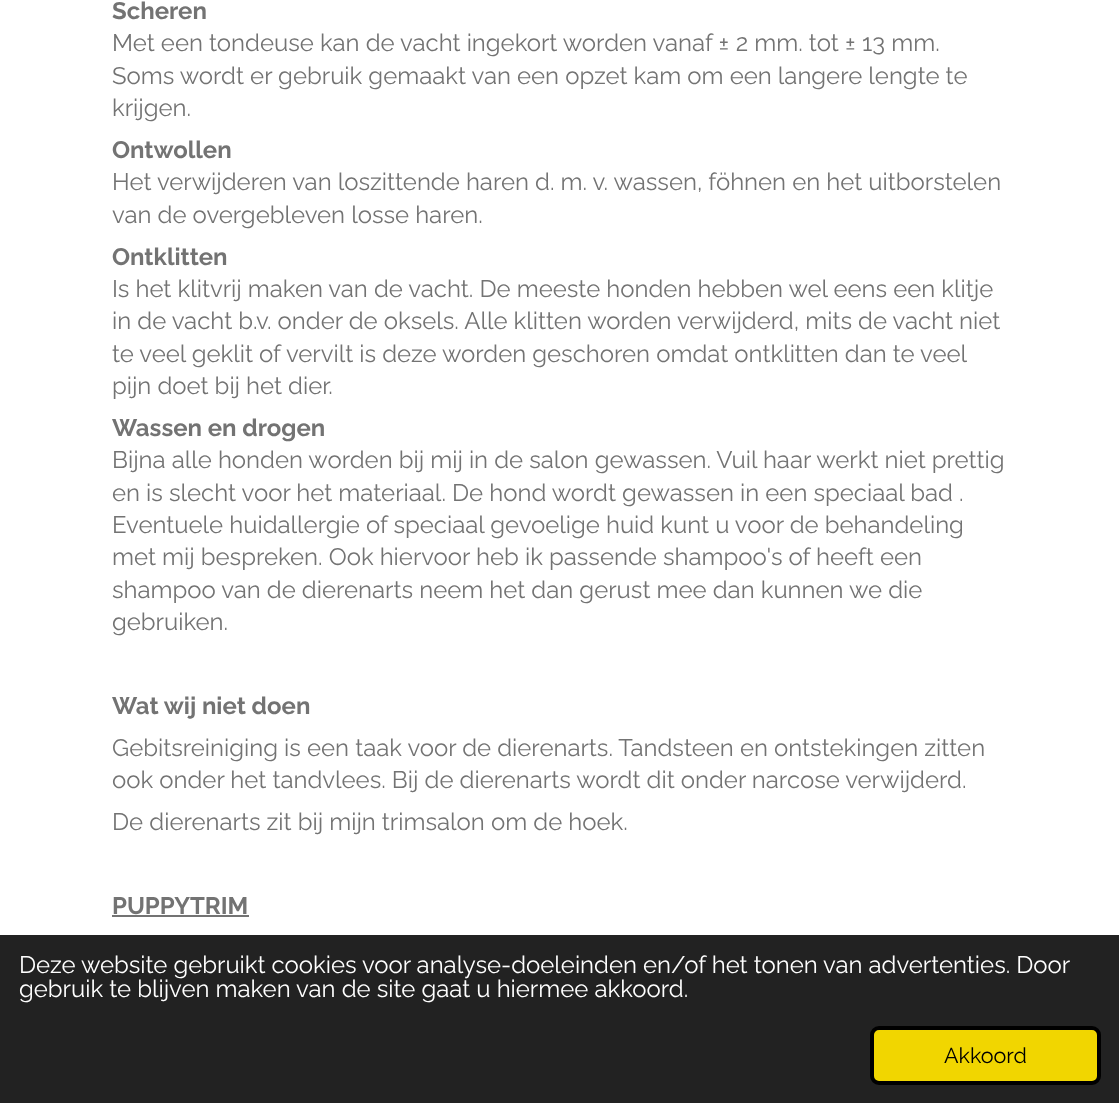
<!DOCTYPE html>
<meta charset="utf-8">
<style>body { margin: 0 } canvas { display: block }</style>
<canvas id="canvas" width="1119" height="1103"></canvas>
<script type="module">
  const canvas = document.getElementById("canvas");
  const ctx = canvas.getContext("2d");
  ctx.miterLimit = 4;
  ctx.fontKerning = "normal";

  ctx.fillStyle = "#ffffff";
  ctx.fillRect(0, 0, 1119, 1103);
  ctx.font = "bold 23.95px Raleway";
  ctx.fillStyle = "#737373";
  ctx.fillText("Scheren", 112, 19);
  ctx.font = "23.95px Raleway";
  ctx.fillText("Met een tondeuse kan de vacht ingekort worden vanaf ± 2 mm. tot ± 13 mm.", 112, 51);
  ctx.fillText("Soms wordt er gebruik gemaakt van een opzet kam om een langere lengte te", 112, 84);
  ctx.fillText("krijgen.", 112, 116);
  ctx.font = "bold 23.95px Raleway";
  ctx.fillText("Ontwollen", 112, 158);
  ctx.font = "23.95px Raleway";
  ctx.fillText("Het verwijderen van loszittende haren d. m. v. wassen, föhnen en het uitborstelen", 112, 190);
  ctx.fillText("van de overgebleven losse haren.", 112, 223);
  ctx.font = "bold 23.95px Raleway";
  ctx.fillText("Ontklitten", 112, 265);
  ctx.font = "23.95px Raleway";
  ctx.fillText("Is het klitvrij maken van de vacht. De meeste honden hebben wel eens een klitje", 112, 297);
  ctx.fillText("in de vacht b.v. onder de oksels. Alle klitten worden verwijderd, mits de vacht niet", 112, 329);
  ctx.fillText("te veel geklit of vervilt is deze worden geschoren omdat ontklitten dan te veel", 112, 362);
  ctx.fillText("pijn doet bij het dier.", 112, 394);
  ctx.font = "bold 23.95px Raleway";
  ctx.fillText("Wassen en drogen", 112, 436);
  ctx.font = "23.95px Raleway";
  ctx.fillText("Bijna alle honden worden bij mij in de salon gewassen. Vuil haar werkt niet prettig", 112, 468);
  ctx.fillText("en is slecht voor het materiaal. De hond wordt gewassen in een speciaal bad .", 112, 501);
  ctx.fillText("Eventuele huidallergie of speciaal gevoelige huid kunt u voor de behandeling", 112, 533);
  ctx.fillText("met mij bespreken. Ook hiervoor heb ik passende shampoo's of heeft een", 112, 565);
  ctx.fillText("shampoo van de dierenarts neem het dan gerust mee dan kunnen we die", 112, 598);
  ctx.fillText("gebruiken.", 112, 630);
  ctx.font = "bold 23.95px Raleway";
  ctx.fillText("Wat wij niet doen", 112, 714);
  ctx.font = "23.95px Raleway";
  ctx.fillText("Gebitsreiniging is een taak voor de dierenarts. Tandsteen en ontstekingen zitten", 112, 756);
  ctx.fillText("ook onder het tandvlees. Bij de dierenarts wordt dit onder narcose verwijderd.", 112, 788);
  ctx.fillText("De dierenarts zit bij mijn trimsalon om de hoek.", 112, 830);
  ctx.font = "bold 23.95px Raleway";
  ctx.fillText("PUPPYTRIM", 112, 914);
  ctx.fillRect(112, 915, 137, 2);
  ctx.fillStyle = "#222222";
  ctx.fillRect(0, 935, 1119, 168);
  ctx.wordSpacing = "-0.1px";
  ctx.font = "23.95px Raleway";
  ctx.fillStyle = "#ffffff";
  ctx.fillText("Deze website gebruikt cookies voor analyse-doeleinden en/of het tonen van advertenties. Door", 19, 973);
  ctx.wordSpacing = "0px";
  ctx.fillText("gebruik te blijven maken van de site gaat u hiermee akkoord.", 19, 997);
  ctx.fillStyle = "#f1d600";
  ctx.beginPath();
  ctx.roundRect(872, 1028, 227, 55, 7);
  ctx.fill();
  ctx.strokeStyle = "#000000";
  ctx.lineWidth = 4;
  ctx.stroke();
  ctx.font = "21.5px Raleway";
  ctx.fillStyle = "#000000";
  ctx.fillText("Akkoord", 944, 1063);
</script>
